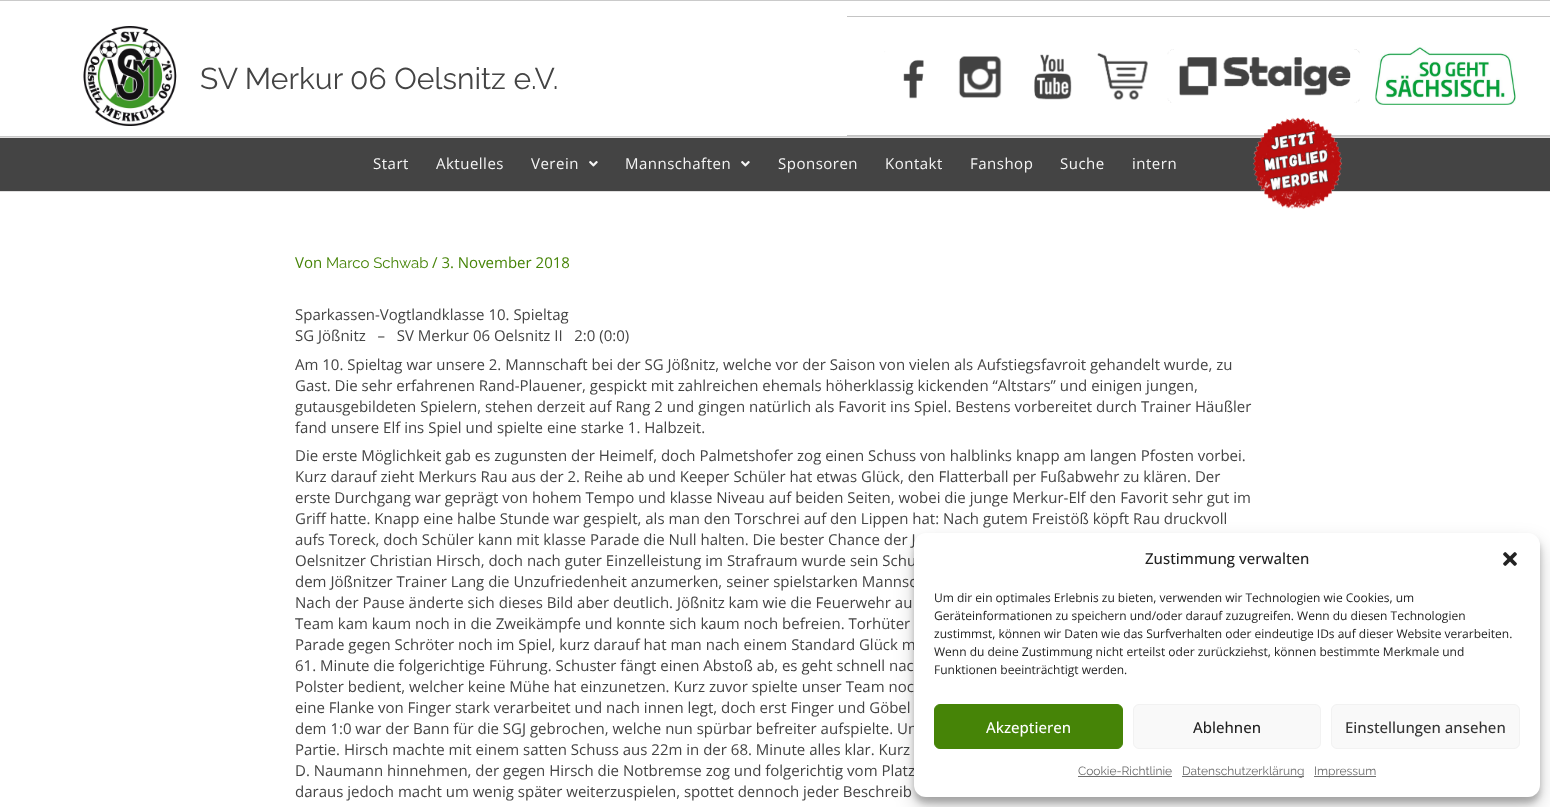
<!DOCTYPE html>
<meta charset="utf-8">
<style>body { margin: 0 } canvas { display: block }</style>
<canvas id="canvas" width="1550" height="807"></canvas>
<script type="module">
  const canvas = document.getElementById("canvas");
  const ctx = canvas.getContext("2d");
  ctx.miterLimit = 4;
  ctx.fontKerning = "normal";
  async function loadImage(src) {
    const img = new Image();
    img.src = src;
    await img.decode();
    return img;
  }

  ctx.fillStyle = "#ffffff";
  ctx.fillRect(0, 0, 1550, 807);
  ctx.fillStyle = "#cacaca";
  ctx.fillRect(0, 0, 1550, 1);
  ctx.fillRect(0, 136, 1550, 1);
  ctx.drawImage(await loadImage("img1.png"), 83, 26, 94, 100);
  ctx.font = "30px Raleway";
  ctx.fillStyle = "#444444";
  ctx.fillText("SV Merkur 06 Oelsnitz e.V.", 200, 89);
  ctx.fillStyle = "#c4c4c4";
  ctx.fillRect(847, 16, 703, 1);
  ctx.fillRect(847, 135, 703, 1);
  ctx.drawImage(await loadImage("img2.png"), 884, 51, 40, 48);
  ctx.drawImage(await loadImage("img3.png"), 958, 56, 44, 42);
  ctx.drawImage(await loadImage("img4.png"), 1034, 54, 38, 46);
  ctx.drawImage(await loadImage("img5.png"), 1097, 53, 51, 47);
  ctx.drawImage(await loadImage("img6.png"), 1167, 49, 193, 54);
  ctx.drawImage(await loadImage("img7.png"), 1375, 47, 141, 58);
  ctx.fillStyle = "#444444";
  ctx.fillRect(0, 138, 1550, 53);
  ctx.fillStyle = "#e0dfdf";
  ctx.fillRect(0, 137, 1550, 1);
  ctx.fillRect(0, 191, 1550, 1);
  ctx.letterSpacing = "0.5px";
  ctx.font = "15px Open Sans";
  ctx.fillStyle = "#f5f5f5";
  ctx.fillText("Start", 373, 169);
  ctx.fillText("Aktuelles", 436, 169);
  ctx.fillText("Verein", 531, 169);
  ctx.drawImage(await loadImage("img8.png"), 589, 161, 9, 6);
  ctx.fillText("Mannschaften", 625, 169);
  ctx.drawImage(await loadImage("img8.png"), 741, 161, 9, 6);
  ctx.fillText("Sponsoren", 778, 169);
  ctx.fillText("Kontakt", 885, 169);
  ctx.fillText("Fanshop", 970, 169);
  ctx.fillText("Suche", 1060, 169);
  ctx.fillText("intern", 1132, 169);
  ctx.drawImage(await loadImage("img9.png"), 1253, 117, 89, 92);
  ctx.letterSpacing = "0px";
  ctx.fillStyle = "#468407";
  ctx.fillText("Von", 295, 268);
  ctx.font = "15px Raleway";
  ctx.fillText("Marco Schwab", 326, 268);
  ctx.font = "15px Open Sans";
  ctx.fillText("/ 3. November 2018", 432, 268);
  ctx.fillStyle = "#444444";
  ctx.fillText("Sparkassen-Vogtlandklasse 10. Spieltag", 295, 320);
  ctx.fillText("SG Jößnitz   –   SV Merkur 06 Oelsnitz II   2:0 (0:0)", 295, 341);
  ctx.fillText("Am 10. Spieltag war unsere 2. Mannschaft bei der SG Jößnitz, welche vor der Saison von vielen als Aufstiegsfavroit gehandelt wurde, zu", 295, 370);
  ctx.fillText("Gast. Die sehr erfahrenen Rand-Plauener, gespickt mit zahlreichen ehemals höherklassig kickenden “Altstars” und einigen jungen,", 295, 391);
  ctx.fillText("gutausgebildeten Spielern, stehen derzeit auf Rang 2 und gingen natürlich als Favorit ins Spiel. Bestens vorbereitet durch Trainer Häußler", 295, 412);
  ctx.fillText("fand unsere Elf ins Spiel und spielte eine starke 1. Halbzeit.", 295, 433);
  ctx.fillText("Die erste Möglichkeit gab es zugunsten der Heimelf, doch Palmetshofer zog einen Schuss von halblinks knapp am langen Pfosten vorbei.", 295, 461);
  ctx.fillText("Kurz darauf zieht Merkurs Rau aus der 2. Reihe ab und Keeper Schüler hat etwas Glück, den Flatterball per Fußabwehr zu klären. Der", 295, 482);
  ctx.fillText("erste Durchgang war geprägt von hohem Tempo und klasse Niveau auf beiden Seiten, wobei die junge Merkur-Elf den Favorit sehr gut im", 295, 503);
  ctx.fillText("Griff hatte. Knapp eine halbe Stunde war gespielt, als man den Torschrei auf den Lippen hat: Nach gutem Freistöß köpft Rau druckvoll", 295, 524);
  ctx.fillText("aufs Toreck, doch Schüler kann mit klasse Parade die Null halten. Die bester Chance der J", 295, 545);
  ctx.fillText("Oelsnitzer Christian Hirsch, doch nach guter Einzelleistung im Strafraum wurde sein Schu", 295, 566);
  ctx.fillText("dem Jößnitzer Trainer Lang die Unzufriedenheit anzumerken, seiner spielstarken Mannsc", 295, 587);
  ctx.fillText("Nach der Pause änderte sich dieses Bild aber deutlich. Jößnitz kam wie die Feuerwehr au", 295, 608);
  ctx.fillText("Team kam kaum noch in die Zweikämpfe und konnte sich kaum noch befreien. Torhüter", 295, 629);
  ctx.fillText("Parade gegen Schröter noch im Spiel, kurz darauf hat man nach einem Standard Glück m", 295, 650);
  ctx.fillText("61. Minute die folgerichtige Führung. Schuster fängt einen Abstoß ab, es geht schnell nac", 295, 671);
  ctx.fillText("Polster bedient, welcher keine Mühe hat einzunetzen. Kurz zuvor spielte unser Team noc", 295, 692);
  ctx.fillText("eine Flanke von Finger stark verarbeitet und nach innen legt, doch erst Finger und Göbel", 295, 713);
  ctx.fillText("dem 1:0 war der Bann für die SGJ gebrochen, welche nun spürbar befreiter aufspielte. Un", 295, 734);
  ctx.fillText("Partie. Hirsch machte mit einem satten Schuss aus 22m in der 68. Minute alles klar. Kurz", 295, 755);
  ctx.fillText("D. Naumann hinnehmen, der gegen Hirsch die Notbremse zog und folgerichtig vom Platz", 295, 776);
  ctx.fillText("daraus jedoch macht um wenig später weiterzuspielen, spottet dennoch jeder Beschreib", 295, 797);
  ctx.fillStyle = "rgba(0, 0, 0, 0.23)";
  ctx.filter = "blur(3px)";
  ctx.beginPath();
  ctx.roundRect(914, 539, 626, 264, 12);
  ctx.fill();
  ctx.filter = "none";
  ctx.fillStyle = "rgba(0, 0, 0, 0.19)";
  ctx.filter = "blur(10px)";
  ctx.beginPath();
  ctx.roundRect(914, 543, 626, 264, 12);
  ctx.fill();
  ctx.filter = "none";
  ctx.fillStyle = "#ffffff";
  ctx.beginPath();
  ctx.roundRect(914, 533, 626, 264, 12);
  ctx.fill();
  ctx.font = "500 15px Open Sans";
  ctx.fillStyle = "#222222";
  ctx.fillText("Zustimmung verwalten", 1145, 564);
  ctx.drawImage(await loadImage("img10.png"), 1503, 552, 14, 14);
  ctx.font = "12px Open Sans";
  ctx.fillText("Um dir ein optimales Erlebnis zu bieten, verwenden wir Technologien wie Cookies, um", 934, 602);
  ctx.fillText("Geräteinformationen zu speichern und/oder darauf zuzugreifen. Wenn du diesen Technologien", 934, 620);
  ctx.fillText("zustimmst, können wir Daten wie das Surfverhalten oder eindeutige IDs auf dieser Website verarbeiten.", 934, 638);
  ctx.fillText("Wenn du deine Zustimmung nicht erteilst oder zurückziehst, können bestimmte Merkmale und", 934, 656);
  ctx.fillText("Funktionen beeinträchtigt werden.", 934, 674);
  ctx.fillStyle = "#468407";
  ctx.beginPath();
  ctx.roundRect(934.5, 704.5, 188, 44, 5.5);
  ctx.fill();
  ctx.strokeStyle = "#468407";
  ctx.stroke();
  ctx.font = "500 15px Open Sans";
  ctx.fillStyle = "#ffffff";
  ctx.fillText("Akzeptieren", 986, 733);
  ctx.fillStyle = "#f9f9f9";
  ctx.beginPath();
  ctx.roundRect(1133.5, 704.5, 187, 44, 5.5);
  ctx.fill();
  ctx.strokeStyle = "#f2f2f2";
  ctx.stroke();
  ctx.fillStyle = "#222222";
  ctx.fillText("Ablehnen", 1193, 733);
  ctx.fillStyle = "#f9f9f9";
  ctx.beginPath();
  ctx.roundRect(1331.5, 704.5, 188, 44, 5.5);
  ctx.fill();
  ctx.stroke();
  ctx.fillStyle = "#333333";
  ctx.fillText("Einstellungen ansehen", 1345, 733);
  ctx.font = "12px Raleway";
  ctx.fillStyle = "#6d6d6d";
  ctx.fillText("Cookie-Richtlinie", 1078, 775);
  ctx.fillRect(1078, 776, 94, 1);
  ctx.fillRect(1182, 776, 122, 1);
  ctx.fillText("Datenschutzerklärung", 1182, 775);
  ctx.fillRect(1314, 776, 62, 1);
  ctx.fillText("Impressum", 1314, 775);
</script>
